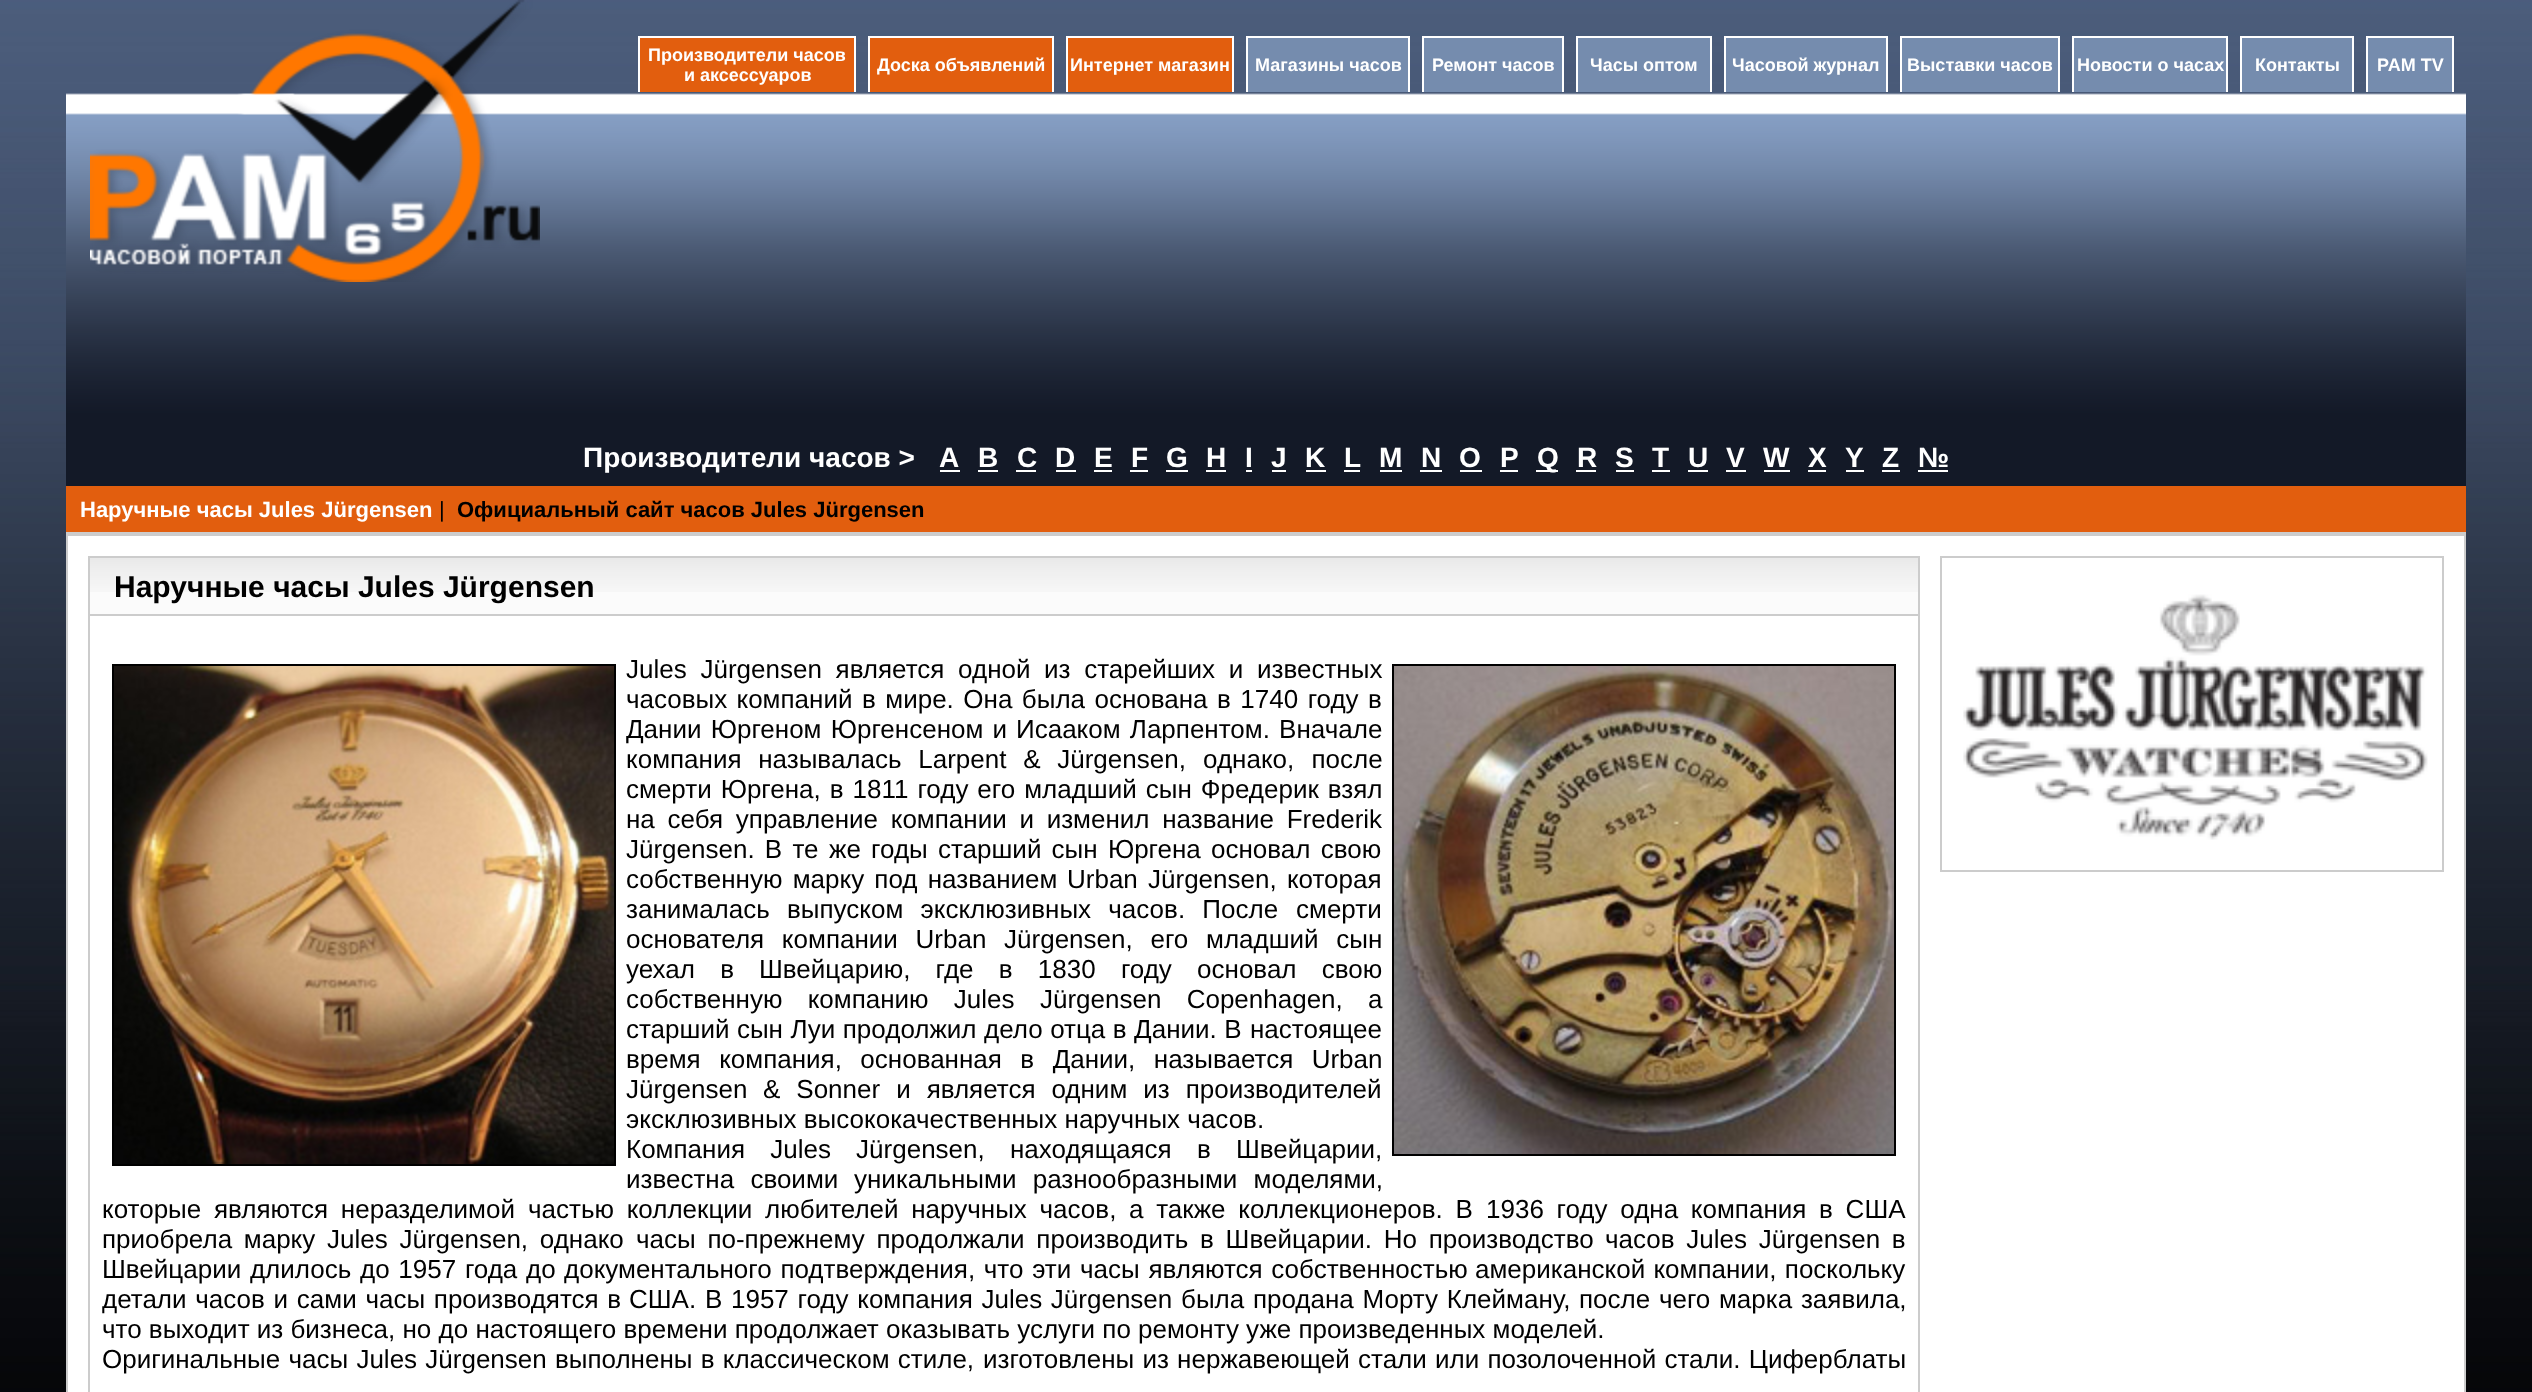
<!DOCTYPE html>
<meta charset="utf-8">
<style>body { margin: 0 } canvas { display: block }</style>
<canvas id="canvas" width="2532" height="1392"></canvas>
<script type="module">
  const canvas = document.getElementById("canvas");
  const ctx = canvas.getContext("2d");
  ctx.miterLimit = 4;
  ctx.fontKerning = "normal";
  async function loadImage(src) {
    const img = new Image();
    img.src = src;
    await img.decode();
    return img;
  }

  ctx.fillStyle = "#ffffff";
  ctx.fillRect(0, 0, 2532, 1392);
  ctx.drawImage(await loadImage("img1.png"), 0, 0, 2532, 1392);
  ctx.drawImage(await loadImage("img2.png"), 66, 93, 498, 335);
  ctx.drawImage(await loadImage("img3.png"), 90, 0, 450, 282);
  ctx.drawImage(await loadImage("img4.png"), 564, 93, 1902, 335);
  ctx.fillStyle = "#e25e0e";
  ctx.fillRect(640, 38, 214, 54);
  ctx.fillStyle = "#ffffff";
  ctx.fillRect(638, 36, 218, 2);
  ctx.fillRect(854, 36, 2, 56);
  ctx.fillRect(638, 36, 2, 56);
  ctx.font = "bold 18px Liberation Sans";
  ctx.fillText("Производители часов", 648, 61);
  ctx.fillText("и аксессуаров", 684, 81);
  ctx.fillStyle = "#e25e0e";
  ctx.fillRect(870, 38, 182, 54);
  ctx.fillStyle = "#ffffff";
  ctx.fillRect(868, 36, 186, 2);
  ctx.fillRect(1052, 36, 2, 56);
  ctx.fillRect(868, 36, 2, 56);
  ctx.fillText("Доска объявлений", 877, 71);
  ctx.fillStyle = "#e25e0e";
  ctx.fillRect(1068, 38, 164, 54);
  ctx.fillStyle = "#ffffff";
  ctx.fillRect(1066, 36, 168, 2);
  ctx.fillRect(1232, 36, 2, 56);
  ctx.fillRect(1066, 36, 2, 56);
  ctx.fillText("Интернет магазин", 1070, 71);
  ctx.fillStyle = "#758cae";
  ctx.fillRect(1248, 38, 160, 54);
  ctx.fillStyle = "#ffffff";
  ctx.fillRect(1246, 36, 164, 2);
  ctx.fillRect(1408, 36, 2, 56);
  ctx.fillRect(1246, 36, 2, 56);
  ctx.fillText("Магазины часов", 1255, 71);
  ctx.fillStyle = "#758cae";
  ctx.fillRect(1424, 38, 138, 54);
  ctx.fillStyle = "#ffffff";
  ctx.fillRect(1422, 36, 142, 2);
  ctx.fillRect(1562, 36, 2, 56);
  ctx.fillRect(1422, 36, 2, 56);
  ctx.fillText("Ремонт часов", 1432, 71);
  ctx.fillStyle = "#758cae";
  ctx.fillRect(1578, 38, 132, 54);
  ctx.fillStyle = "#ffffff";
  ctx.fillRect(1576, 36, 136, 2);
  ctx.fillRect(1710, 36, 2, 56);
  ctx.fillRect(1576, 36, 2, 56);
  ctx.fillText("Часы оптом", 1590, 71);
  ctx.fillStyle = "#758cae";
  ctx.fillRect(1726, 38, 160, 54);
  ctx.fillStyle = "#ffffff";
  ctx.fillRect(1724, 36, 164, 2);
  ctx.fillRect(1886, 36, 2, 56);
  ctx.fillRect(1724, 36, 2, 56);
  ctx.fillText("Часовой журнал", 1732, 71);
  ctx.fillStyle = "#758cae";
  ctx.fillRect(1902, 38, 156, 54);
  ctx.fillStyle = "#ffffff";
  ctx.fillRect(1900, 36, 160, 2);
  ctx.fillRect(2058, 36, 2, 56);
  ctx.fillRect(1900, 36, 2, 56);
  ctx.fillText("Выставки часов", 1907, 71);
  ctx.fillStyle = "#758cae";
  ctx.fillRect(2074, 38, 152, 54);
  ctx.fillStyle = "#ffffff";
  ctx.fillRect(2072, 36, 156, 2);
  ctx.fillRect(2226, 36, 2, 56);
  ctx.fillRect(2072, 36, 2, 56);
  ctx.fillText("Новости о часах", 2077, 71);
  ctx.fillStyle = "#758cae";
  ctx.fillRect(2242, 38, 110, 54);
  ctx.fillStyle = "#ffffff";
  ctx.fillRect(2240, 36, 114, 2);
  ctx.fillRect(2352, 36, 2, 56);
  ctx.fillRect(2240, 36, 2, 56);
  ctx.fillText("Контакты", 2255, 71);
  ctx.fillStyle = "#758cae";
  ctx.fillRect(2368, 38, 84, 54);
  ctx.fillStyle = "#ffffff";
  ctx.fillRect(2366, 36, 88, 2);
  ctx.fillRect(2452, 36, 2, 56);
  ctx.fillRect(2366, 36, 2, 56);
  ctx.fillText("PAM TV", 2377, 71);
  ctx.fillStyle = "#131927";
  ctx.fillRect(66, 428, 2400, 58);
  ctx.font = "bold 28px Liberation Sans";
  ctx.fillStyle = "#ffffff";
  ctx.fillText("Производители часов >", 583, 467);
  ctx.fillText("A", 939, 467);
  ctx.fillRect(940, 470, 20, 2);
  ctx.fillText("B", 978, 467);
  ctx.fillRect(978, 470, 20, 2);
  ctx.fillText("C", 1017, 467);
  ctx.fillRect(1016, 470, 20, 2);
  ctx.fillText("D", 1055, 467);
  ctx.fillRect(1056, 470, 20, 2);
  ctx.fillText("E", 1094, 467);
  ctx.fillRect(1094, 470, 18, 2);
  ctx.fillText("F", 1131, 467);
  ctx.fillRect(1130, 470, 18, 2);
  ctx.fillText("G", 1166, 467);
  ctx.fillRect(1166, 470, 22, 2);
  ctx.fillText("H", 1206, 467);
  ctx.fillRect(1206, 470, 20, 2);
  ctx.fillText("I", 1245, 467);
  ctx.fillRect(1246, 470, 6, 2);
  ctx.fillText("J", 1271, 467);
  ctx.fillRect(1272, 470, 14, 2);
  ctx.fillText("K", 1305, 467);
  ctx.fillRect(1306, 470, 20, 2);
  ctx.fillText("L", 1344, 467);
  ctx.fillRect(1344, 470, 16, 2);
  ctx.fillText("M", 1379, 467);
  ctx.fillRect(1380, 470, 22, 2);
  ctx.fillText("N", 1421, 467);
  ctx.fillRect(1420, 470, 22, 2);
  ctx.fillText("O", 1459, 467);
  ctx.fillRect(1460, 470, 22, 2);
  ctx.fillText("P", 1500, 467);
  ctx.fillRect(1500, 470, 18, 2);
  ctx.fillRect(1536, 470, 22, 2);
  ctx.fillText("Q", 1537, 467);
  ctx.fillText("R", 1577, 467);
  ctx.fillRect(1576, 470, 20, 2);
  ctx.fillText("S", 1615, 467);
  ctx.fillRect(1616, 470, 18, 2);
  ctx.fillText("T", 1652, 467);
  ctx.fillRect(1652, 470, 18, 2);
  ctx.fillText("U", 1688, 467);
  ctx.fillRect(1688, 470, 20, 2);
  ctx.fillText("V", 1726, 467);
  ctx.fillRect(1726, 470, 20, 2);
  ctx.fillText("W", 1763, 467);
  ctx.fillRect(1764, 470, 26, 2);
  ctx.fillText("X", 1808, 467);
  ctx.fillRect(1808, 470, 18, 2);
  ctx.fillText("Y", 1845, 467);
  ctx.fillRect(1846, 470, 18, 2);
  ctx.fillText("Z", 1882, 467);
  ctx.fillRect(1882, 470, 18, 2);
  ctx.fillText("№", 1918, 467);
  ctx.fillRect(1918, 470, 30, 2);
  ctx.fillStyle = "#e25e0e";
  ctx.fillRect(66, 486, 2400, 46);
  ctx.fillStyle = "#cccccc";
  ctx.fillRect(66, 532, 2400, 4);
  ctx.font = "bold 22px Liberation Sans";
  ctx.fillStyle = "#ffffff";
  ctx.fillText("Наручные часы Jules Jürgensen", 80, 517);
  ctx.font = "22px Liberation Sans";
  ctx.fillStyle = "#000000";
  ctx.fillText("|", 439, 517);
  ctx.font = "bold 22px Liberation Sans";
  ctx.fillText("Официальный сайт часов Jules Jürgensen", 457, 517);
  ctx.fillStyle = "#ffffff";
  ctx.fillRect(68, 536, 2396, 856);
  ctx.fillStyle = "#cccccc";
  ctx.fillRect(2464, 534, 2, 858);
  ctx.fillRect(66, 534, 2, 858);
  ctx.strokeStyle = "#cccccc";
  ctx.lineWidth = 2;
  ctx.strokeRect(89, 557, 1830, 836);
  ctx.fillStyle = "#fbfbfb";
  ctx.fillRect(90, 592, 1828, 22);
  ctx.drawImage(await loadImage("img5.png"), 90, 558, 1828, 34);
  ctx.fillStyle = "#cccccc";
  ctx.fillRect(90, 614, 1828, 2);
  ctx.font = "bold 30px Liberation Sans";
  ctx.fillStyle = "#000000";
  ctx.fillText("Наручные часы Jules Jürgensen", 114, 597);
  ctx.strokeStyle = "#000000";
  ctx.strokeRect(113, 665, 502, 500);
  ctx.drawImage(await loadImage("img6.png"), 114, 666, 500, 498);
  ctx.wordSpacing = "6.5px";
  ctx.font = "26px Liberation Sans";
  ctx.fillText("Jules Jürgensen является одной", 626, 678);
  ctx.fillText("из старейших и известных", 1044, 678);
  ctx.strokeRect(1393, 665, 502, 490);
  ctx.drawImage(await loadImage("img7.png"), 1394, 666, 500, 488);
  ctx.wordSpacing = "2px";
  ctx.fillText("часовых компаний", 626, 708);
  ctx.wordSpacing = "2.25px";
  ctx.fillText("в мире. Она была основана в 1740 году в", 862, 708);
  ctx.wordSpacing = "2px";
  ctx.fillText("Дании Юргеном Юргенсеном и", 626, 738);
  ctx.fillText("Исааком Ларпентом. Вначале", 1016, 738);
  ctx.wordSpacing = "9.5px";
  ctx.fillText("компания называлась Larpent & Jürgensen,", 626, 768);
  ctx.wordSpacing = "10px";
  ctx.fillText("однако, после", 1203, 768);
  ctx.wordSpacing = "1.75px";
  ctx.fillText("смерти Юргена, в 1811 году его младший сын Фредерик взял", 626, 798);
  ctx.wordSpacing = "5.5px";
  ctx.fillText("на себя управление компании и изменил название Frederik", 626, 828);
  ctx.wordSpacing = "3px";
  ctx.fillText("Jürgensen. В те", 626, 858);
  ctx.fillText("же годы старший сын Юргена основал свою", 829, 858);
  ctx.fillText("собственную марку под названием", 626, 888);
  ctx.fillText("Urban Jürgensen, которая", 1067, 888);
  ctx.wordSpacing = "10px";
  ctx.fillText("занималась выпуском эксклюзивных часов. После", 626, 918);
  ctx.wordSpacing = "0px";
  ctx.fillText("смерти", 1296, 918);
  ctx.wordSpacing = "10.5px";
  ctx.fillText("основателя компании Urban Jürgensen, его младший сын", 626, 948);
  ctx.wordSpacing = "18px";
  ctx.fillText("уехал в", 626, 978);
  ctx.fillText("Швейцарию, где в 1830 году основал свою", 759, 978);
  ctx.fillText("собственную компанию Jules", 626, 1008);
  ctx.fillText("Jürgensen Copenhagen, а", 1040, 1008);
  ctx.wordSpacing = "0.25px";
  ctx.fillText("старший сын Луи продолжил дело отца в Дании. В", 626, 1038);
  ctx.wordSpacing = "0px";
  ctx.fillText("настоящее", 1250, 1038);
  ctx.wordSpacing = "11.25px";
  ctx.fillText("время компания, основанная в Дании, называется Urban", 626, 1068);
  ctx.wordSpacing = "0px";
  ctx.fillText("Jürgensen", 626, 1098);
  ctx.wordSpacing = "8.75px";
  ctx.fillText("& Sonner и является одним из производителей", 763, 1098);
  ctx.wordSpacing = "0px";
  ctx.fillText("эксклюзивных высококачественных наручных часов.", 626, 1128);
  ctx.wordSpacing = "18px";
  ctx.fillText("Компания Jules Jürgensen, находящаяся в Швейцарии,", 626, 1158);
  ctx.wordSpacing = "9px";
  ctx.fillText("известна своими", 626, 1188);
  ctx.fillText("уникальными разнообразными моделями,", 854, 1188);
  ctx.wordSpacing = "5.5px";
  ctx.fillText("которые являются неразделимой", 102, 1218);
  ctx.fillText("частью коллекции любителей наручных часов, а также коллекционеров. В", 528, 1218);
  ctx.fillText("1936 году одна компания в США", 1486, 1218);
  ctx.wordSpacing = "4.5px";
  ctx.fillText("приобрела марку Jules Jürgensen, однако", 102, 1248);
  ctx.fillText("часы по-прежнему продолжали производить в Швейцарии. Но производство", 636, 1248);
  ctx.fillText("часов Jules Jürgensen в", 1605, 1248);
  ctx.wordSpacing = "1.5px";
  ctx.fillText("Швейцарии длилось до 1957 года до", 102, 1278);
  ctx.fillText("документального подтверждения, что эти часы являются собственностью", 564, 1278);
  ctx.wordSpacing = "1px";
  ctx.fillText("американской компании, поскольку", 1475, 1278);
  ctx.wordSpacing = "1.5px";
  ctx.fillText("детали часов и сами часы производятся в", 102, 1308);
  ctx.fillText("США. В 1957 году компания Jules Jürgensen была продана Морту Клейману,", 629, 1308);
  ctx.fillText("после чего марка заявила,", 1579, 1308);
  ctx.wordSpacing = "0px";
  ctx.fillText("что выходит из бизнеса, но до настоящего времени продолжает оказывать услуги по ремонту уже произведенных моделей.", 102, 1338);
  ctx.wordSpacing = "1px";
  ctx.fillText("Оригинальные часы Jules Jürgensen выполнены в классическом стиле,", 102, 1368);
  ctx.fillText("изготовлены из нержавеющей стали или позолоченной стали. Циферблаты", 983, 1368);
  ctx.strokeStyle = "#cccccc";
  ctx.strokeRect(1941, 557, 502, 314);
  ctx.drawImage(await loadImage("img8.png"), 1963, 594, 465, 246);
</script>
